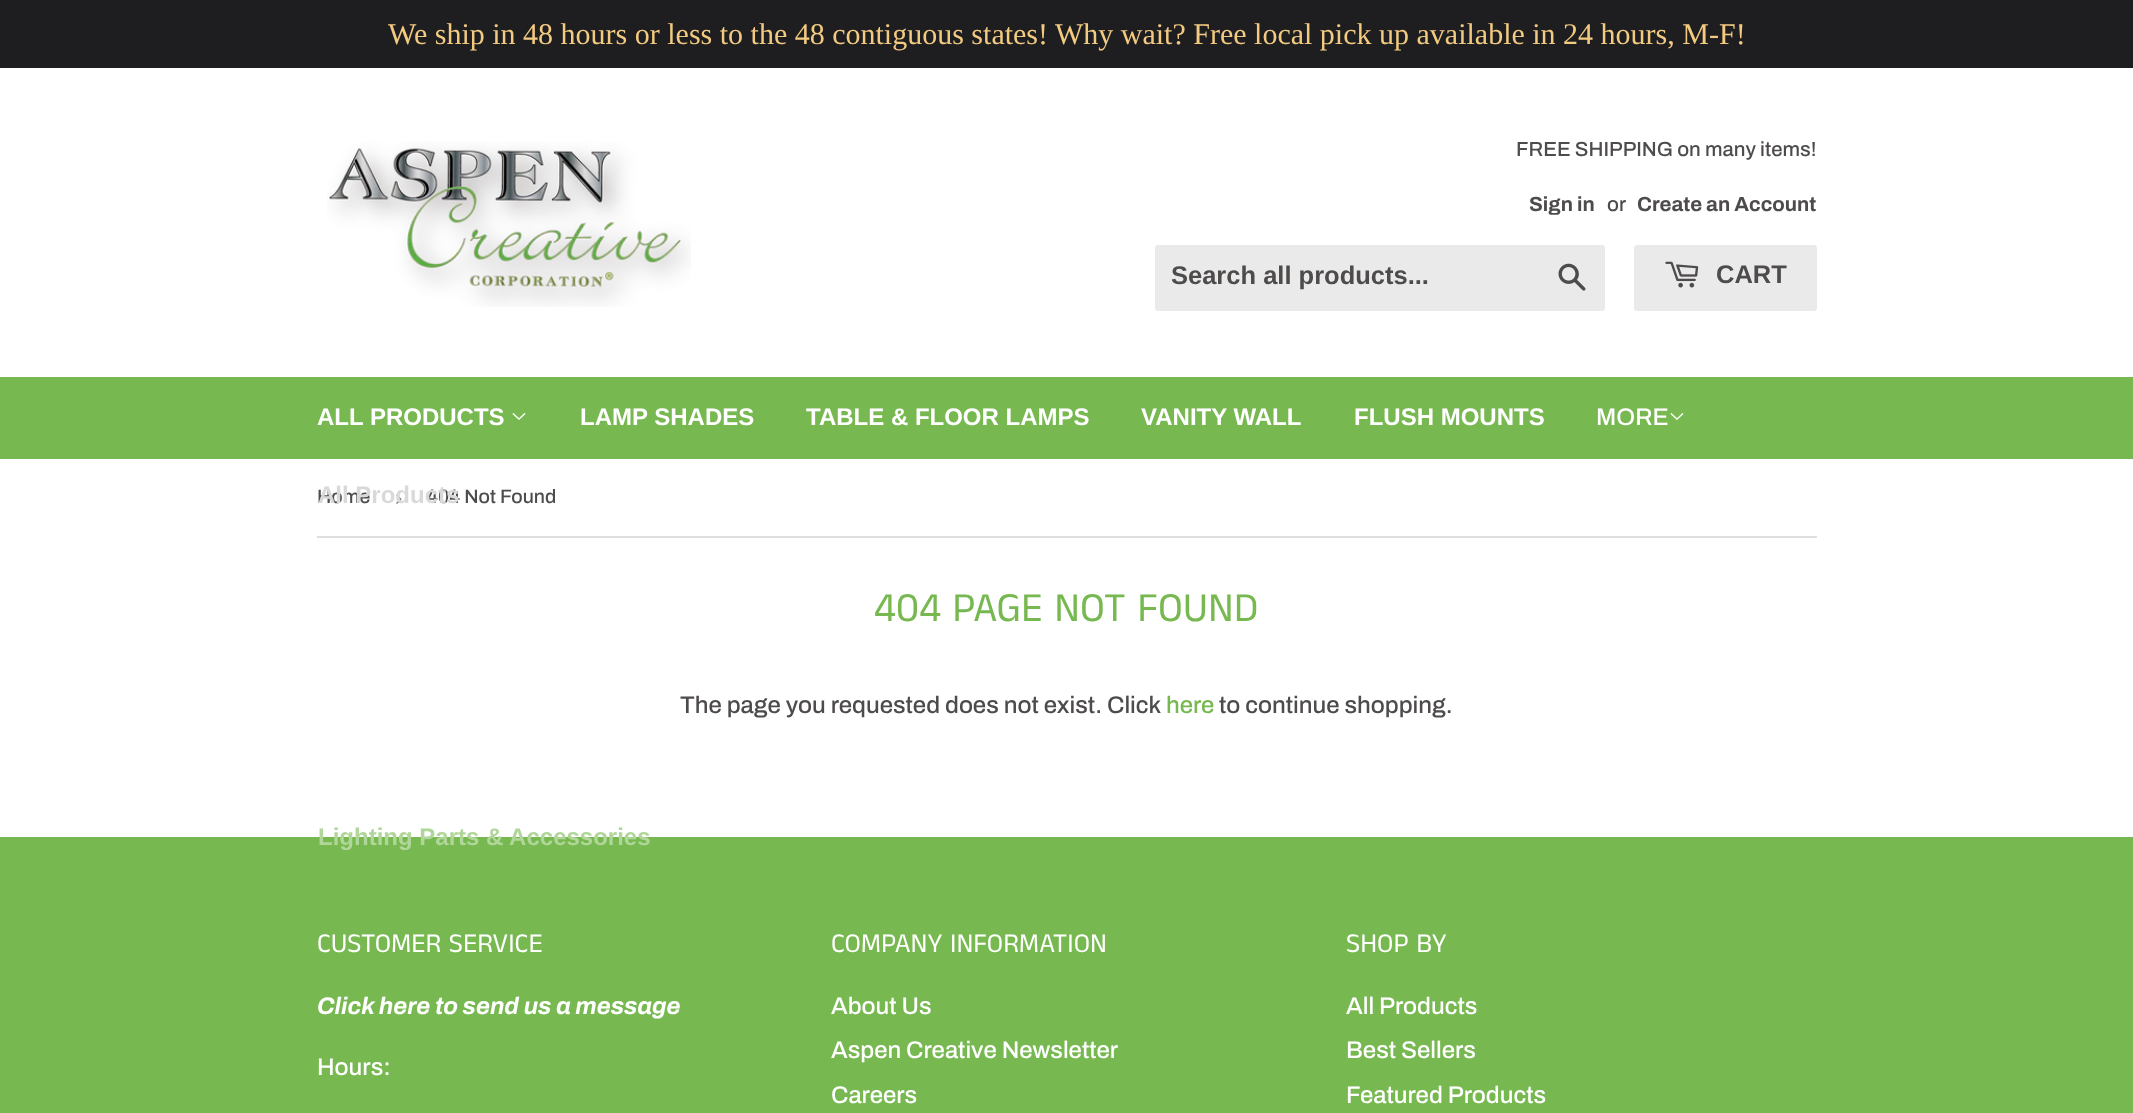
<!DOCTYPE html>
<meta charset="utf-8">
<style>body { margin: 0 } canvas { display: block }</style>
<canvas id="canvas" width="2133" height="1113"></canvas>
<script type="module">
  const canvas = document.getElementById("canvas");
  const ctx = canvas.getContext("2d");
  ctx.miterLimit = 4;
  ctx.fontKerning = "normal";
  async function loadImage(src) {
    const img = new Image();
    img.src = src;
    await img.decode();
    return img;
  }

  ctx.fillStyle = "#ffffff";
  ctx.fillRect(0, 0, 2133, 1113);
  ctx.fillStyle = "#1e1e20";
  ctx.fillRect(0, 0, 2133, 68);
  ctx.font = "30px Liberation Serif";
  ctx.fillStyle = "#f2ca80";
  ctx.fillText("We ship in 48 hours or less to the 48 contiguous states! Why wait? Free local pick up available in 24 hours, M-F!", 388, 44);
  ctx.drawImage(await loadImage("img1.png"), 327, 141, 364, 166);
  ctx.font = "500 20.4px Archivo";
  ctx.fillStyle = "#4e4b4b";
  ctx.fillText("FREE SHIPPING on many items!", 1516, 156);
  ctx.font = "bold 20.4px Archivo";
  ctx.fillText("Sign in", 1529, 211);
  ctx.font = "500 20.4px Archivo";
  ctx.fillText("or", 1607, 211);
  ctx.font = "bold 20.4px Archivo";
  ctx.fillText("Create an Account", 1637, 211);
  ctx.fillStyle = "#ebeaea";
  ctx.beginPath();
  ctx.roundRect(1155, 245, 450, 66, 3);
  ctx.fill();
  ctx.font = "bold 25.5px Arimo";
  ctx.fillStyle = "#4e4b4b";
  ctx.fillText("Search all products...", 1171, 284);
  ctx.drawImage(await loadImage("img2.png"), 1558, 263, 28, 28);
  ctx.fillStyle = "#ebeaea";
  ctx.beginPath();
  ctx.roundRect(1634, 245, 183, 66, 3);
  ctx.fill();
  ctx.drawImage(await loadImage("img3.png"), 1665, 261, 34, 27);
  ctx.fillStyle = "#4e4b4b";
  ctx.fillText("CART", 1716, 283);
  ctx.fillStyle = "#77b950";
  ctx.fillRect(0, 377, 2133, 82);
  ctx.font = "bold 24px Arimo";
  ctx.fillStyle = "#ffffff";
  ctx.fillText("ALL PRODUCTS", 317, 425);
  ctx.drawImage(await loadImage("img4.png"), 512, 413, 14, 7);
  ctx.font = "500 19.5px Archivo";
  ctx.fillStyle = "#4e4b4b";
  ctx.fillText("Home", 317, 503);
  ctx.font = "22px Liberation Sans";
  ctx.fillStyle = "#767676";
  ctx.fillText("›", 395, 505);
  ctx.font = "500 19.5px Archivo";
  ctx.fillStyle = "#4e4b4b";
  ctx.fillText("404 Not Found", 427, 503);
  ctx.font = "bold 24px Arimo";
  ctx.fillStyle = "#dad9d9";
  ctx.fillText("All Products", 318, 503);
  ctx.fillStyle = "#77b950";
  ctx.fillRect(0, 837, 2133, 276);
  ctx.fillStyle = "#b0d699";
  ctx.fillText("Lighting Parts & Accessories", 318, 845);
  ctx.fillStyle = "#ffffff";
  ctx.fillText("LAMP SHADES", 580, 425);
  ctx.fillText("TABLE & FLOOR LAMPS", 806, 425);
  ctx.fillText("VANITY WALL", 1141, 425);
  ctx.fillText("FLUSH MOUNTS", 1354, 425);
  ctx.font = "500 24px Archivo";
  ctx.fillText("MORE", 1596, 425);
  ctx.drawImage(await loadImage("img4.png"), 1670, 413, 14, 7);
  ctx.fillStyle = "#dedede";
  ctx.fillRect(317, 536, 1500, 2);
  ctx.font = "41.5px Anek Tamil";
  ctx.fillStyle = "#77b950";
  ctx.fillText("404 PAGE NOT FOUND", 874, 621);
  ctx.font = "500 24px Archivo";
  ctx.fillStyle = "#4e4b4b";
  ctx.fillText("The page you requested does not exist. Click", 680, 713);
  ctx.fillStyle = "#77b950";
  ctx.fillText("here", 1166, 713);
  ctx.fillStyle = "#4e4b4b";
  ctx.fillText("to continue shopping.", 1219, 713);
  ctx.font = "27.25px Anek Tamil";
  ctx.fillStyle = "#ffffff";
  ctx.fillText("CUSTOMER SERVICE", 317, 952);
  ctx.font = "italic bold 24px Archivo";
  ctx.fillText("Click here to send us a message", 317, 1014);
  ctx.font = "500 24px Archivo";
  ctx.fillText("Hours:", 317, 1075);
  ctx.font = "27.25px Anek Tamil";
  ctx.fillText("COMPANY INFORMATION", 831, 952);
  ctx.font = "500 24px Archivo";
  ctx.fillText("About Us", 831, 1014);
  ctx.fillText("Aspen Creative Newsletter", 831, 1058);
  ctx.fillText("Careers", 831, 1103);
  ctx.font = "27.25px Anek Tamil";
  ctx.fillText("SHOP BY", 1346, 952);
  ctx.font = "500 24px Archivo";
  ctx.fillText("All Products", 1346, 1014);
  ctx.fillText("Best Sellers", 1346, 1058);
  ctx.fillText("Featured Products", 1346, 1103);
</script>
